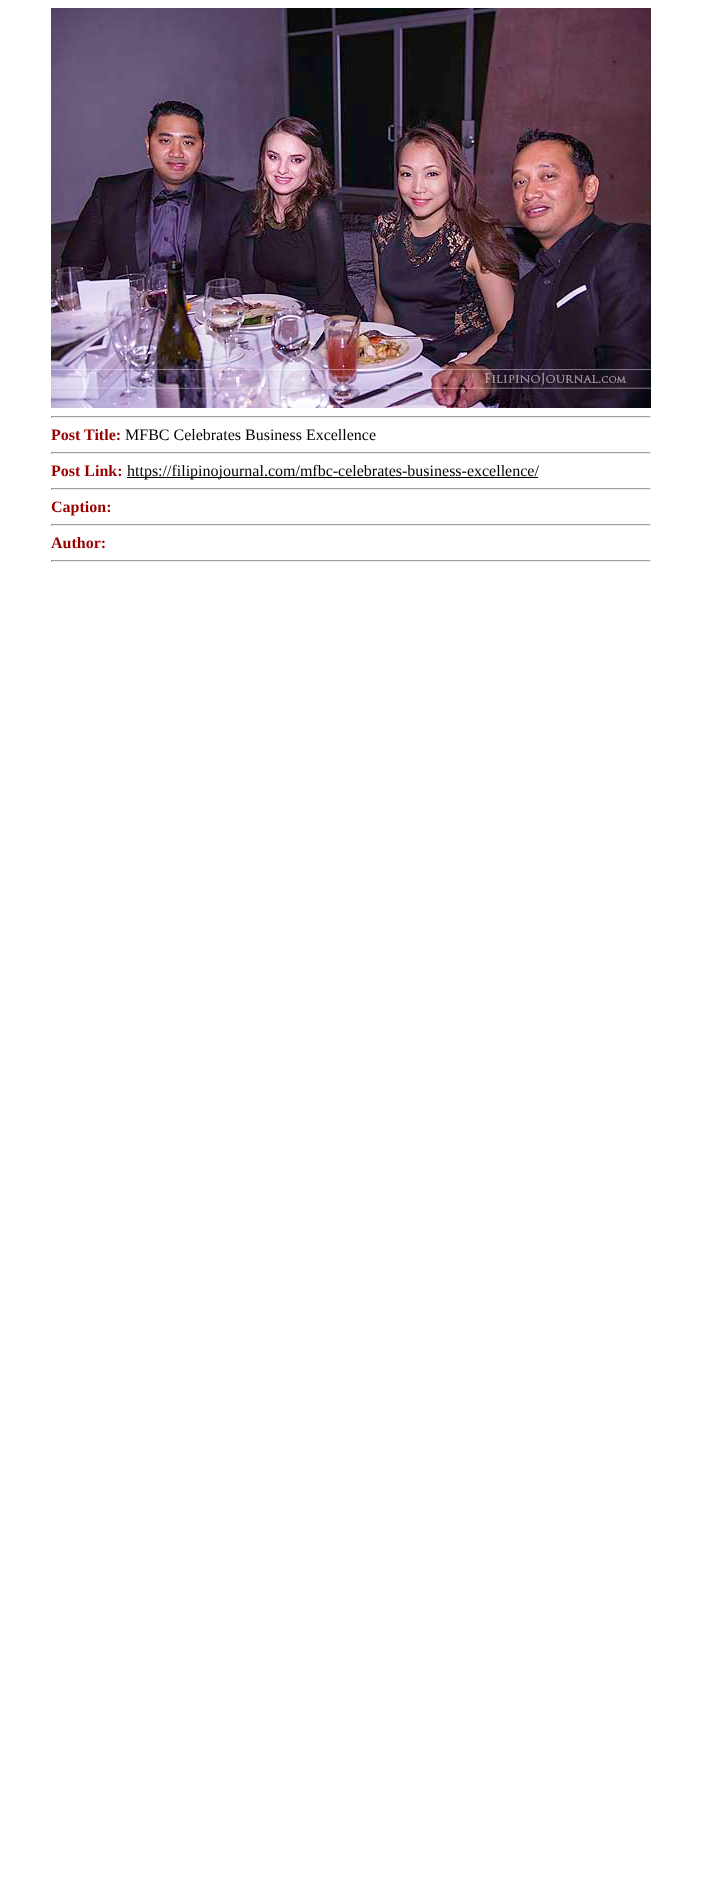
<!DOCTYPE html>
<meta charset="utf-8">
<style>body { margin: 0 } canvas { display: block }</style>
<canvas id="canvas" width="702" height="1888"></canvas>
<script type="module">
  const canvas = document.getElementById("canvas");
  const ctx = canvas.getContext("2d");
  ctx.miterLimit = 4;
  ctx.fontKerning = "normal";
  async function loadImage(src) {
    const img = new Image();
    img.src = src;
    await img.decode();
    return img;
  }

  ctx.fillStyle = "#ffffff";
  ctx.fillRect(0, 0, 702, 1888);
  ctx.drawImage(await loadImage("img1.png"), 51, 8, 600, 400);
  ctx.fillStyle = "#9f9f9f";
  ctx.fillRect(51, 416, 600, 1);
  ctx.fillStyle = "#eeeeee";
  ctx.fillRect(650, 416, 1, 2);
  ctx.fillRect(51, 417, 600, 1);
  ctx.fillStyle = "#9f9f9f";
  ctx.fillRect(51, 416, 1, 2);
  ctx.font = "bold 16px Liberation Serif";
  ctx.fillStyle = "#990000";
  ctx.fillText("Post Title:", 51, 440);
  ctx.font = "16px Liberation Serif";
  ctx.fillStyle = "#000000";
  ctx.fillText("MFBC Celebrates Business Excellence", 125, 440);
  ctx.fillStyle = "#9f9f9f";
  ctx.fillRect(51, 452, 600, 1);
  ctx.fillStyle = "#eeeeee";
  ctx.fillRect(650, 452, 1, 2);
  ctx.fillRect(51, 453, 600, 1);
  ctx.fillStyle = "#9f9f9f";
  ctx.fillRect(51, 452, 1, 2);
  ctx.font = "bold 16px Liberation Serif";
  ctx.fillStyle = "#990000";
  ctx.fillText("Post Link:", 51, 476);
  ctx.fillStyle = "#000000";
  ctx.fillRect(127, 477, 411, 1);
  ctx.font = "16px Liberation Serif";
  ctx.fillText("https://filipinojournal.com/mfbc-celebrates-business-excellence/", 127, 476);
  ctx.fillStyle = "#9f9f9f";
  ctx.fillRect(51, 488, 600, 1);
  ctx.fillStyle = "#eeeeee";
  ctx.fillRect(650, 488, 1, 2);
  ctx.fillRect(51, 489, 600, 1);
  ctx.fillStyle = "#9f9f9f";
  ctx.fillRect(51, 488, 1, 2);
  ctx.font = "bold 16px Liberation Serif";
  ctx.fillStyle = "#990000";
  ctx.fillText("Caption:", 51, 512);
  ctx.fillStyle = "#9f9f9f";
  ctx.fillRect(51, 524, 600, 1);
  ctx.fillStyle = "#eeeeee";
  ctx.fillRect(650, 524, 1, 2);
  ctx.fillRect(51, 525, 600, 1);
  ctx.fillStyle = "#9f9f9f";
  ctx.fillRect(51, 524, 1, 2);
  ctx.fillStyle = "#990000";
  ctx.fillText("Author:", 51, 548);
  ctx.fillStyle = "#9f9f9f";
  ctx.fillRect(51, 560, 600, 1);
  ctx.fillStyle = "#eeeeee";
  ctx.fillRect(650, 560, 1, 2);
  ctx.fillRect(51, 561, 600, 1);
  ctx.fillStyle = "#9f9f9f";
  ctx.fillRect(51, 560, 1, 2);
</script>
